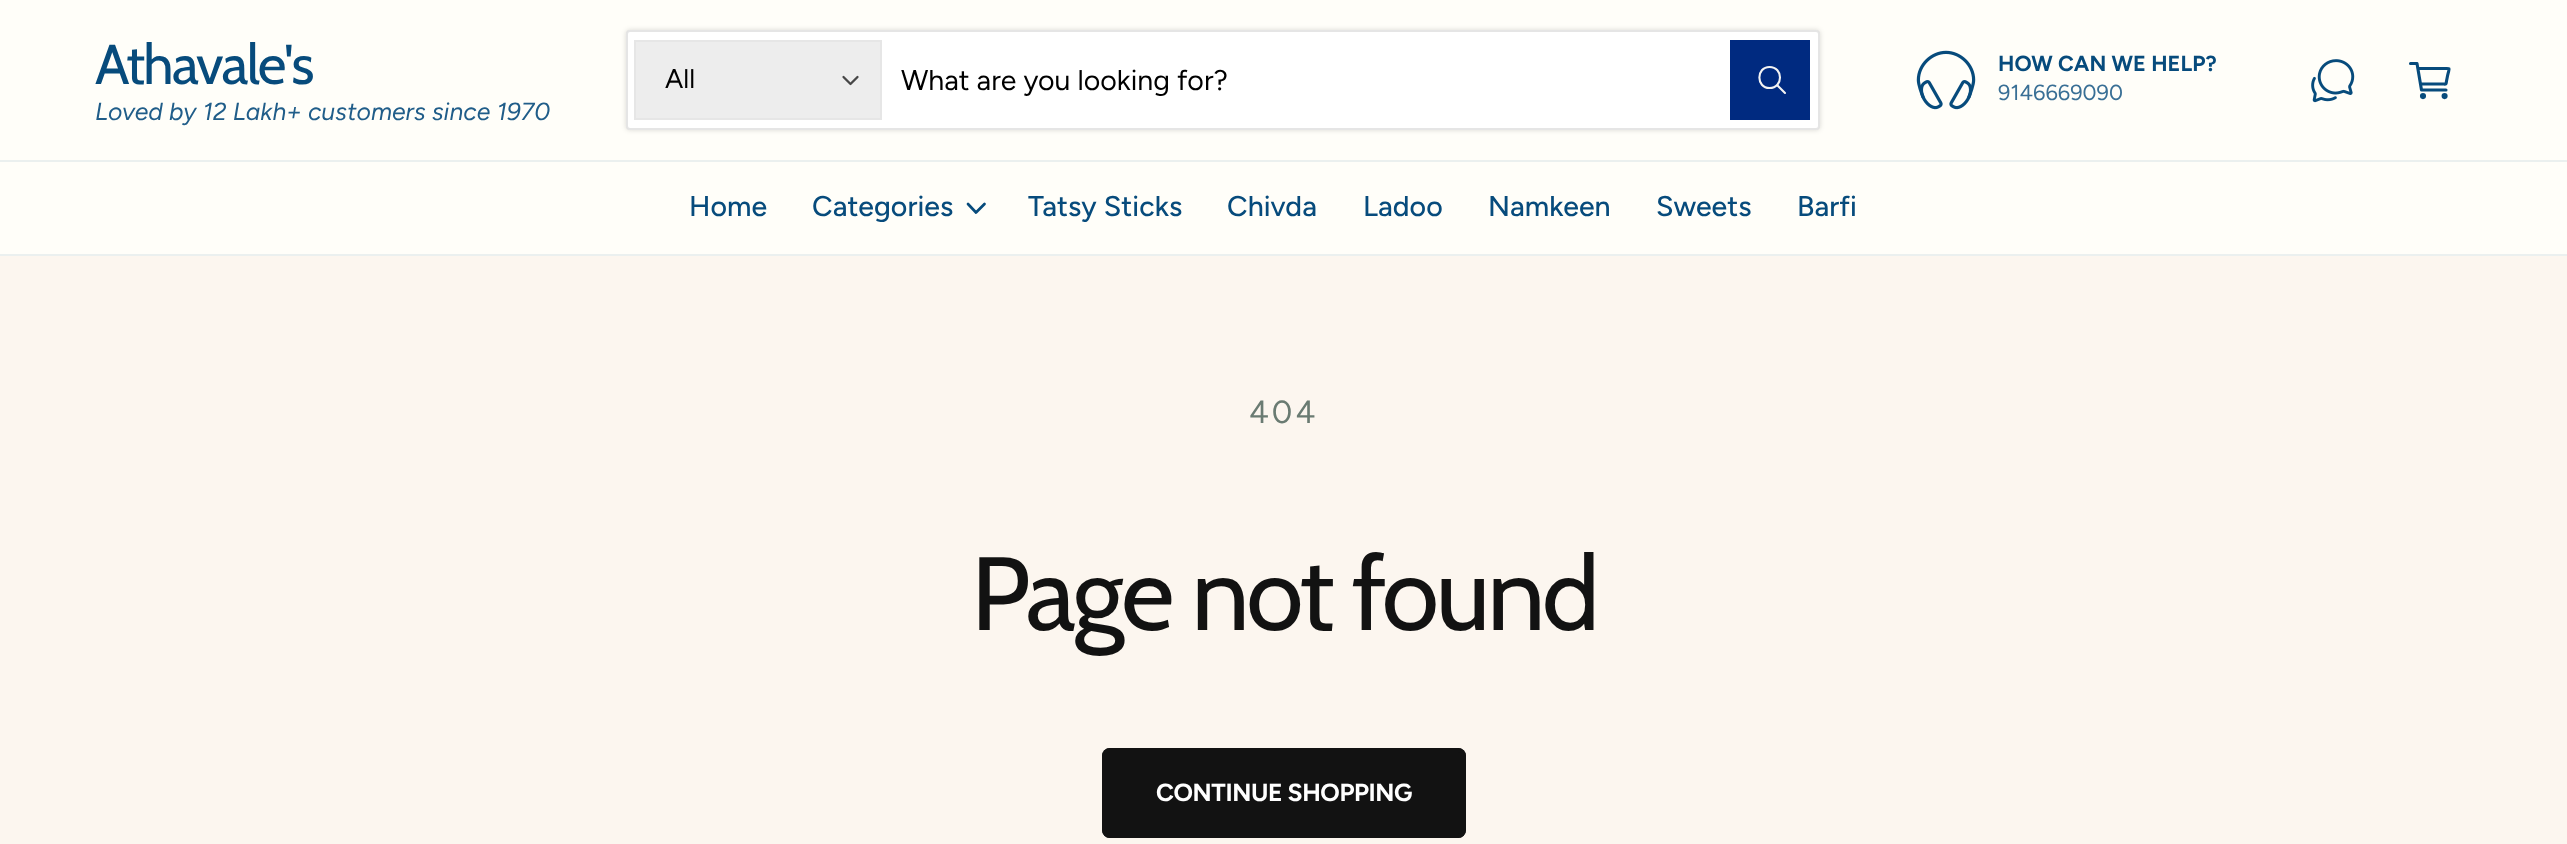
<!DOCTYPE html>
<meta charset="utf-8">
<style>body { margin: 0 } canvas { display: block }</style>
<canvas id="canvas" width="2567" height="844"></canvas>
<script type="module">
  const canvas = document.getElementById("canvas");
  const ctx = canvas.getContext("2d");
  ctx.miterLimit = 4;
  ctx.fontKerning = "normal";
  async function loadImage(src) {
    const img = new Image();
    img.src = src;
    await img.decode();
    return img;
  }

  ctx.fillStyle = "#fcf6ef";
  ctx.fillRect(0, 0, 2567, 844);
  ctx.fillStyle = "#fffef9";
  ctx.fillRect(0, 0, 2567, 254);
  ctx.letterSpacing = "-1.75px";
  ctx.font = "56px Cabin";
  ctx.fillStyle = "#074b7c";
  ctx.fillText("Athavale's", 95, 84);
  ctx.letterSpacing = "0.05px";
  ctx.font = "italic 24.75px Figtree";
  ctx.fillStyle = "#205d89";
  ctx.fillText("Loved by 12 Lakh+ customers since 1970", 95, 120);
  ctx.fillStyle = "#ffffff";
  ctx.beginPath();
  ctx.roundRect(626, 30, 1194, 100, 4);
  ctx.fill();
  ctx.fillStyle = "#ededed";
  ctx.beginPath();
  ctx.rect(635, 41, 246, 78);
  ctx.fill();
  ctx.strokeStyle = "#e6e6e6";
  ctx.lineWidth = 2;
  ctx.stroke();
  ctx.beginPath();
  ctx.moveTo(843.5, 77);
  ctx.lineTo(850.5, 84);
  ctx.lineTo(857.5, 77);
  ctx.strokeStyle = "#474747";
  ctx.lineWidth = 2.3;
  ctx.lineCap = "round";
  ctx.lineJoin = "round";
  ctx.stroke();
  ctx.fillStyle = "#002a80";
  ctx.fillRect(1730, 40, 80, 80);
  ctx.beginPath();
  ctx.moveTo(1769.5, 67);
  ctx.bezierCurveTo(1756, 67, 1756, 88, 1769.5, 88);
  ctx.bezierCurveTo(1783.5, 88, 1783.5, 67, 1769.5, 67);
  ctx.closePath();
  ctx.strokeStyle = "#f3f3f3";
  ctx.lineWidth = 2.1;
  ctx.lineCap = "butt";
  ctx.lineJoin = "miter";
  ctx.stroke();
  ctx.beginPath();
  ctx.moveTo(1777.5, 85.5);
  ctx.lineTo(1785, 93);
  ctx.lineCap = "round";
  ctx.stroke();
  ctx.save();
  ctx.beginPath();
  ctx.moveTo(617, 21);
  ctx.lineTo(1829, 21);
  ctx.lineTo(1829, 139);
  ctx.lineTo(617, 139);
  ctx.closePath();
  ctx.moveTo(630, 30);
  ctx.lineTo(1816, 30);
  ctx.bezierCurveTo(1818, 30, 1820, 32, 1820, 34);
  ctx.lineTo(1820, 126);
  ctx.bezierCurveTo(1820, 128, 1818, 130, 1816, 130);
  ctx.lineTo(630, 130);
  ctx.bezierCurveTo(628, 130, 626, 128, 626, 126);
  ctx.lineTo(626, 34);
  ctx.bezierCurveTo(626, 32, 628, 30, 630, 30);
  ctx.closePath();
  ctx.clip("evenodd");
  ctx.fillStyle = "rgba(0, 0, 0, 0.15)";
  ctx.filter = "blur(2.5px)";
  ctx.beginPath();
  ctx.roundRect(626, 30, 1194, 100, 4);
  ctx.fill();
  ctx.filter = "none";
  ctx.restore();
  ctx.beginPath();
  ctx.roundRect(627, 31, 1192, 98, 3);
  ctx.strokeStyle = "rgba(0, 0, 0, 0.1)";
  ctx.lineWidth = 2;
  ctx.stroke();
  ctx.font = "27px Figtree";
  ctx.fillStyle = "#000000";
  ctx.fillText("All", 665, 88);
  ctx.letterSpacing = "0px";
  ctx.font = "28.5px Figtree";
  ctx.fillText("What are you looking for?", 901, 90);
  ctx.drawImage(await loadImage("img1.png"), 1916, 50, 60, 60);
  ctx.letterSpacing = "0.05px";
  ctx.font = "bold 21.8px Figtree";
  ctx.fillStyle = "#074b7c";
  ctx.fillText("HOW CAN WE HELP?", 1998, 71);
  ctx.font = "21.8px Figtree";
  ctx.fillStyle = "#396f95";
  ctx.fillText("9146669090", 1998, 100);
  ctx.drawImage(await loadImage("img2.png"), 2311, 59, 44, 44);
  ctx.beginPath();
  ctx.arc(2423, 96.1, 1.5, 0, Math.PI * 2);
  ctx.strokeStyle = "#074b7c";
  ctx.lineWidth = 3.1;
  ctx.stroke();
  ctx.beginPath();
  ctx.arc(2444.6, 96.1, 1.5, 0, Math.PI * 2);
  ctx.stroke();
  ctx.beginPath();
  ctx.moveTo(2410.5, 63.5);
  ctx.lineTo(2417, 63.5);
  ctx.lineTo(2421.5, 90);
  ctx.lineTo(2446, 90);
  ctx.moveTo(2421.5, 84);
  ctx.lineTo(2441.5, 84);
  ctx.bezierCurveTo(2446.5, 84, 2446, 85, 2446.5, 81);
  ctx.lineTo(2447.5, 76);
  ctx.bezierCurveTo(2449.5, 67, 2451, 68.5, 2443.5, 68.5);
  ctx.lineTo(2418.5, 68.5);
  ctx.lineJoin = "round";
  ctx.stroke();
  ctx.fillStyle = "#ebf0ef";
  ctx.fillRect(0, 160, 2567, 2);
  ctx.fillRect(0, 254, 2567, 2);
  ctx.font = "500 28.5px Figtree";
  ctx.fillStyle = "#074b7c";
  ctx.fillText("Home", 689, 216);
  ctx.fillText("Categories", 812, 216);
  ctx.beginPath();
  ctx.moveTo(968, 204);
  ctx.lineTo(976, 212.5);
  ctx.lineTo(984.5, 204);
  ctx.lineWidth = 2.7;
  ctx.stroke();
  ctx.fillText("Tatsy Sticks", 1028, 216);
  ctx.fillText("Chivda", 1227, 216);
  ctx.fillText("Ladoo", 1363, 216);
  ctx.fillText("Namkeen", 1488, 216);
  ctx.fillText("Sweets", 1656, 216);
  ctx.fillText("Barfi", 1797, 216);
  ctx.letterSpacing = "3px";
  ctx.font = "32px Figtree";
  ctx.fillStyle = "#6a7b72";
  ctx.fillText("404", 1249, 423);
  ctx.letterSpacing = "-3.2px";
  ctx.font = "104px Cabin";
  ctx.fillStyle = "#121212";
  ctx.fillText("Page not found", 971, 630);
  ctx.beginPath();
  ctx.roundRect(1102, 748, 364, 90, 8);
  ctx.fill();
  ctx.beginPath();
  ctx.roundRect(1104, 750, 360, 86, 6);
  ctx.strokeStyle = "#121212";
  ctx.lineWidth = 4;
  ctx.lineJoin = "miter";
  ctx.stroke();
  ctx.letterSpacing = "-0.4px";
  ctx.font = "bold 24.75px Figtree";
  ctx.fillStyle = "#ffffff";
  ctx.fillText("CONTINUE SHOPPING", 1156, 801);
</script>
